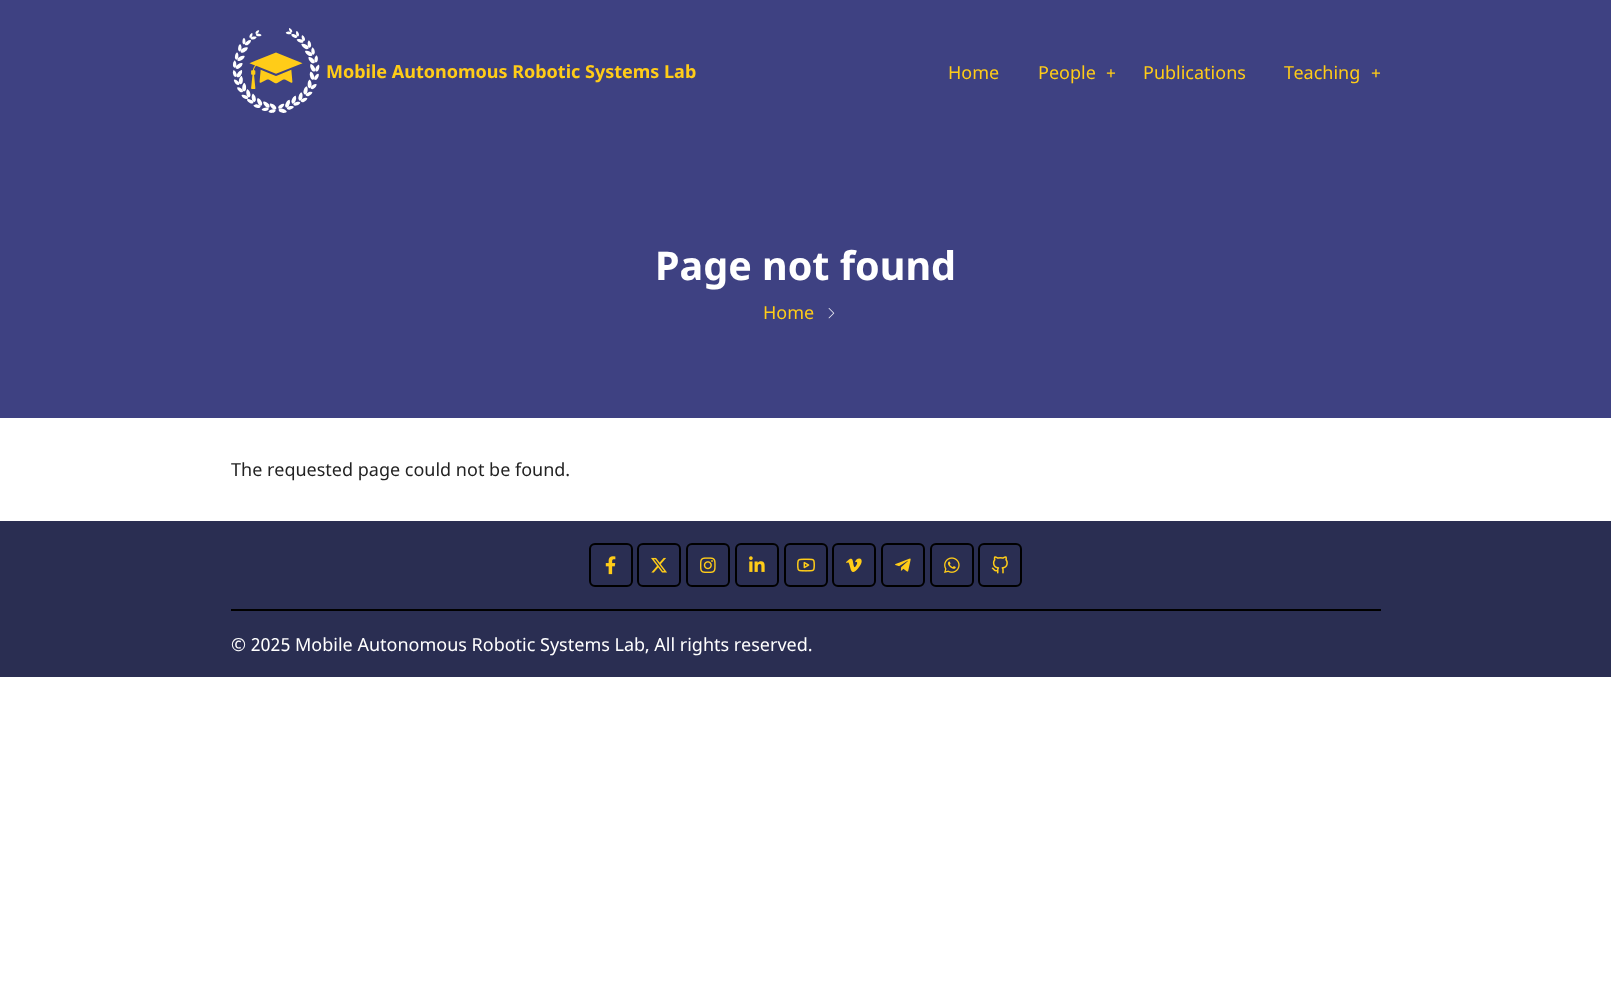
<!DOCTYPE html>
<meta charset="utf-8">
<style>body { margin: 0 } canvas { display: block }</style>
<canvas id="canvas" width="1611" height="997"></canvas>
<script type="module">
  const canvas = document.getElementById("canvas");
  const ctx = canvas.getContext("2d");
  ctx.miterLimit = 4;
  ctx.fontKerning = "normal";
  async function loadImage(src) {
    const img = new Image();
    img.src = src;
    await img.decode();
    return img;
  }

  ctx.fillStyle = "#ffffff";
  ctx.fillRect(0, 0, 1611, 997);
  ctx.fillStyle = "#3e4182";
  ctx.fillRect(0, 0, 1611, 418);
  ctx.drawImage(await loadImage("img1.png"), 232, 28, 88, 85);
  ctx.font = "bold 18px Noto Sans";
  ctx.fillStyle = "#ffcc18";
  ctx.fillText("Mobile Autonomous Robotic Systems Lab", 326, 78);
  ctx.font = "18px Noto Sans";
  ctx.fillText("Home", 948, 79);
  ctx.fillText("People", 1038, 79);
  ctx.fillText("+", 1106, 79);
  ctx.fillText("Publications", 1143, 79);
  ctx.fillText("Teaching", 1284, 79);
  ctx.fillText("+", 1371, 79);
  ctx.font = "bold 39.5px Noto Sans";
  ctx.fillStyle = "#ffffff";
  ctx.fillText("Page not found", 655, 280);
  ctx.font = "18px Noto Sans";
  ctx.fillStyle = "#ffcc18";
  ctx.fillText("Home", 763, 319);
  ctx.drawImage(await loadImage("img2.png"), 828, 308, 7, 11);
  ctx.fillStyle = "#222222";
  ctx.fillText("The requested page could not be found.", 231, 476);
  ctx.fillStyle = "#2a2e52";
  ctx.fillRect(0, 521, 1611, 156);
  ctx.beginPath();
  ctx.roundRect(590, 544, 42, 42, 5);
  ctx.strokeStyle = "#000000";
  ctx.lineWidth = 2;
  ctx.stroke();
  ctx.drawImage(await loadImage("img3.png"), 605, 556, 11, 19);
  ctx.beginPath();
  ctx.roundRect(638, 544, 42, 42, 5);
  ctx.stroke();
  ctx.drawImage(await loadImage("img4.png"), 651, 557, 16, 16);
  ctx.beginPath();
  ctx.roundRect(687, 544, 42, 42, 5);
  ctx.stroke();
  ctx.drawImage(await loadImage("img5.png"), 700, 557, 16, 16);
  ctx.beginPath();
  ctx.roundRect(736, 544, 42, 42, 5);
  ctx.stroke();
  ctx.drawImage(await loadImage("img6.png"), 749, 556, 16, 16);
  ctx.beginPath();
  ctx.roundRect(785, 544, 42, 42, 5);
  ctx.stroke();
  ctx.drawImage(await loadImage("img7.png"), 797, 558, 18, 14);
  ctx.beginPath();
  ctx.roundRect(833, 544, 42, 42, 5);
  ctx.stroke();
  ctx.drawImage(await loadImage("img8.png"), 846, 558, 16, 14);
  ctx.beginPath();
  ctx.roundRect(882, 544, 42, 42, 5);
  ctx.stroke();
  ctx.drawImage(await loadImage("img9.png"), 895, 558, 16, 14);
  ctx.beginPath();
  ctx.roundRect(931, 544, 42, 42, 5);
  ctx.stroke();
  ctx.drawImage(await loadImage("img10.png"), 944, 557, 16, 16);
  ctx.beginPath();
  ctx.roundRect(979, 544, 42, 42, 5);
  ctx.stroke();
  ctx.drawImage(await loadImage("img11.png"), 991, 556, 17, 18);
  ctx.fillStyle = "#000000";
  ctx.fillRect(231, 609, 1150, 2);
  ctx.fillStyle = "#ffffff";
  ctx.fillText("© 2025 Mobile Autonomous Robotic Systems Lab, All rights reserved.", 231, 651);
</script>
